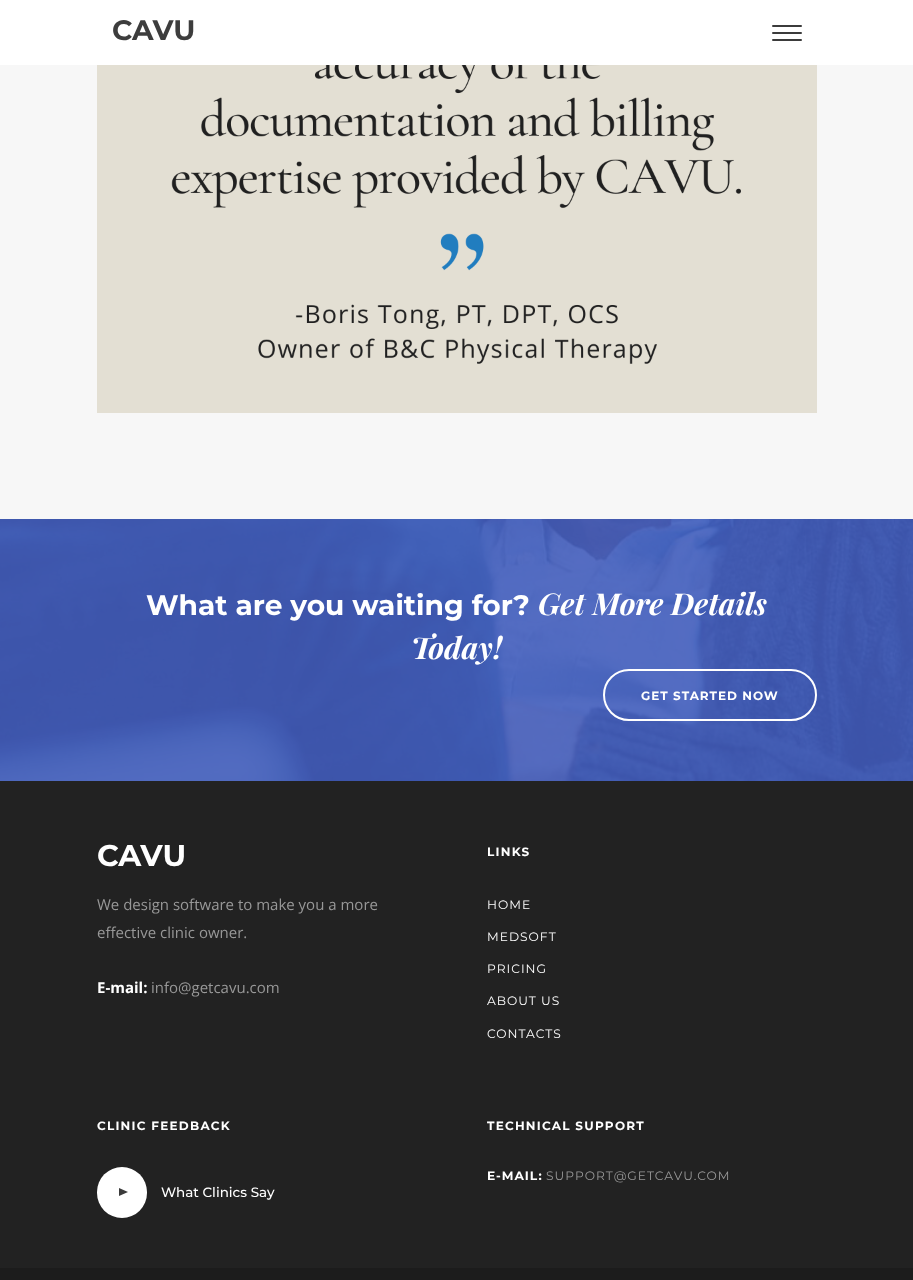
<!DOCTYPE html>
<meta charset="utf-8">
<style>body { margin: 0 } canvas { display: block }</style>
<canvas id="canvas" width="913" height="1280"></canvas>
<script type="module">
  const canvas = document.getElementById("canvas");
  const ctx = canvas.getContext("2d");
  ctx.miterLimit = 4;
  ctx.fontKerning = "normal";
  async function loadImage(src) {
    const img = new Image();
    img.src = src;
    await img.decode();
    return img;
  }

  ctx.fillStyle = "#222222";
  ctx.fillRect(0, 0, 913, 1280);
  ctx.fillStyle = "#ffffff";
  ctx.fillRect(0, 0, 913, 65);
  ctx.font = "bold 28.1px Montserrat";
  ctx.fillStyle = "#3d3d3d";
  ctx.fillText("CAVU", 112, 40);
  ctx.fillStyle = "#3b3b3b";
  ctx.beginPath();
  ctx.roundRect(772, 25, 30, 2, 1);
  ctx.fill();
  ctx.beginPath();
  ctx.roundRect(772, 32, 30, 2, 1);
  ctx.fill();
  ctx.beginPath();
  ctx.roundRect(772, 39, 30, 2, 1);
  ctx.fill();
  ctx.fillStyle = "#f7f7f7";
  ctx.fillRect(0, 65, 913, 454);
  ctx.drawImage(await loadImage("img1.png"), 97, 65, 720, 348);
  ctx.drawImage(await loadImage("img2.png"), 0, 519, 913, 262);
  ctx.fillStyle = "#ffffff";
  ctx.fillText("What are you waiting for?", 146, 615);
  ctx.font = "italic bold 30px Playfair Display";
  ctx.fillText("Get More Details", 538, 615);
  ctx.fillText("Today!", 411, 659);
  ctx.beginPath();
  ctx.roundRect(604, 670, 212, 50, 25);
  ctx.strokeStyle = "#ffffff";
  ctx.lineWidth = 2;
  ctx.stroke();
  ctx.letterSpacing = "1px";
  ctx.font = "bold 12px Montserrat";
  ctx.fillText("GET STARTED NOW", 641, 700);
  ctx.letterSpacing = "0px";
  ctx.font = "bold 30px Montserrat";
  ctx.fillText("CAVU", 97, 866);
  ctx.font = "15px Open Sans";
  ctx.fillStyle = "#989898";
  ctx.fillText("We design software to make you a more", 97, 910);
  ctx.fillText("effective clinic owner.", 97, 938);
  ctx.font = "bold 15px Open Sans";
  ctx.fillStyle = "#ffffff";
  ctx.fillText("E-mail:", 97, 993);
  ctx.font = "15px Open Sans";
  ctx.fillStyle = "#989898";
  ctx.fillText("info@getcavu.com", 151, 993);
  ctx.letterSpacing = "1.25px";
  ctx.font = "bold 12px Montserrat";
  ctx.fillStyle = "#ffffff";
  ctx.fillText("LINKS", 487, 856);
  ctx.letterSpacing = "1px";
  ctx.font = "12.25px Montserrat";
  ctx.fillText("HOME", 487, 909);
  ctx.fillText("MEDSOFT", 487, 941);
  ctx.fillText("PRICING", 487, 973);
  ctx.fillText("ABOUT US", 487, 1005);
  ctx.fillText("CONTACTS", 487, 1038);
  ctx.letterSpacing = "1.25px";
  ctx.font = "bold 12px Montserrat";
  ctx.fillText("CLINIC FEEDBACK", 97, 1130);
  ctx.beginPath();
  ctx.roundRect(97, 1167, 50, 51, 25);
  ctx.fill();
  ctx.fillStyle = "#3b3b3b";
  ctx.beginPath();
  ctx.moveTo(119, 1196);
  ctx.lineTo(119, 1188);
  ctx.lineTo(128, 1192);
  ctx.closePath();
  ctx.fill();
  ctx.letterSpacing = "0px";
  ctx.font = "500 13.5px Montserrat";
  ctx.fillStyle = "#ffffff";
  ctx.fillText("What Clinics Say", 161, 1197);
  ctx.letterSpacing = "1.25px";
  ctx.font = "bold 12px Montserrat";
  ctx.fillText("TECHNICAL SUPPORT", 487, 1130);
  ctx.letterSpacing = "1px";
  ctx.font = "bold 12.25px Montserrat";
  ctx.fillText("E-MAIL:", 487, 1180);
  ctx.font = "12.25px Montserrat";
  ctx.fillStyle = "#989898";
  ctx.fillText("SUPPORT@GETCAVU.COM", 546, 1180);
  ctx.fillStyle = "#1c1c1c";
  ctx.fillRect(0, 1268, 913, 12);
</script>
